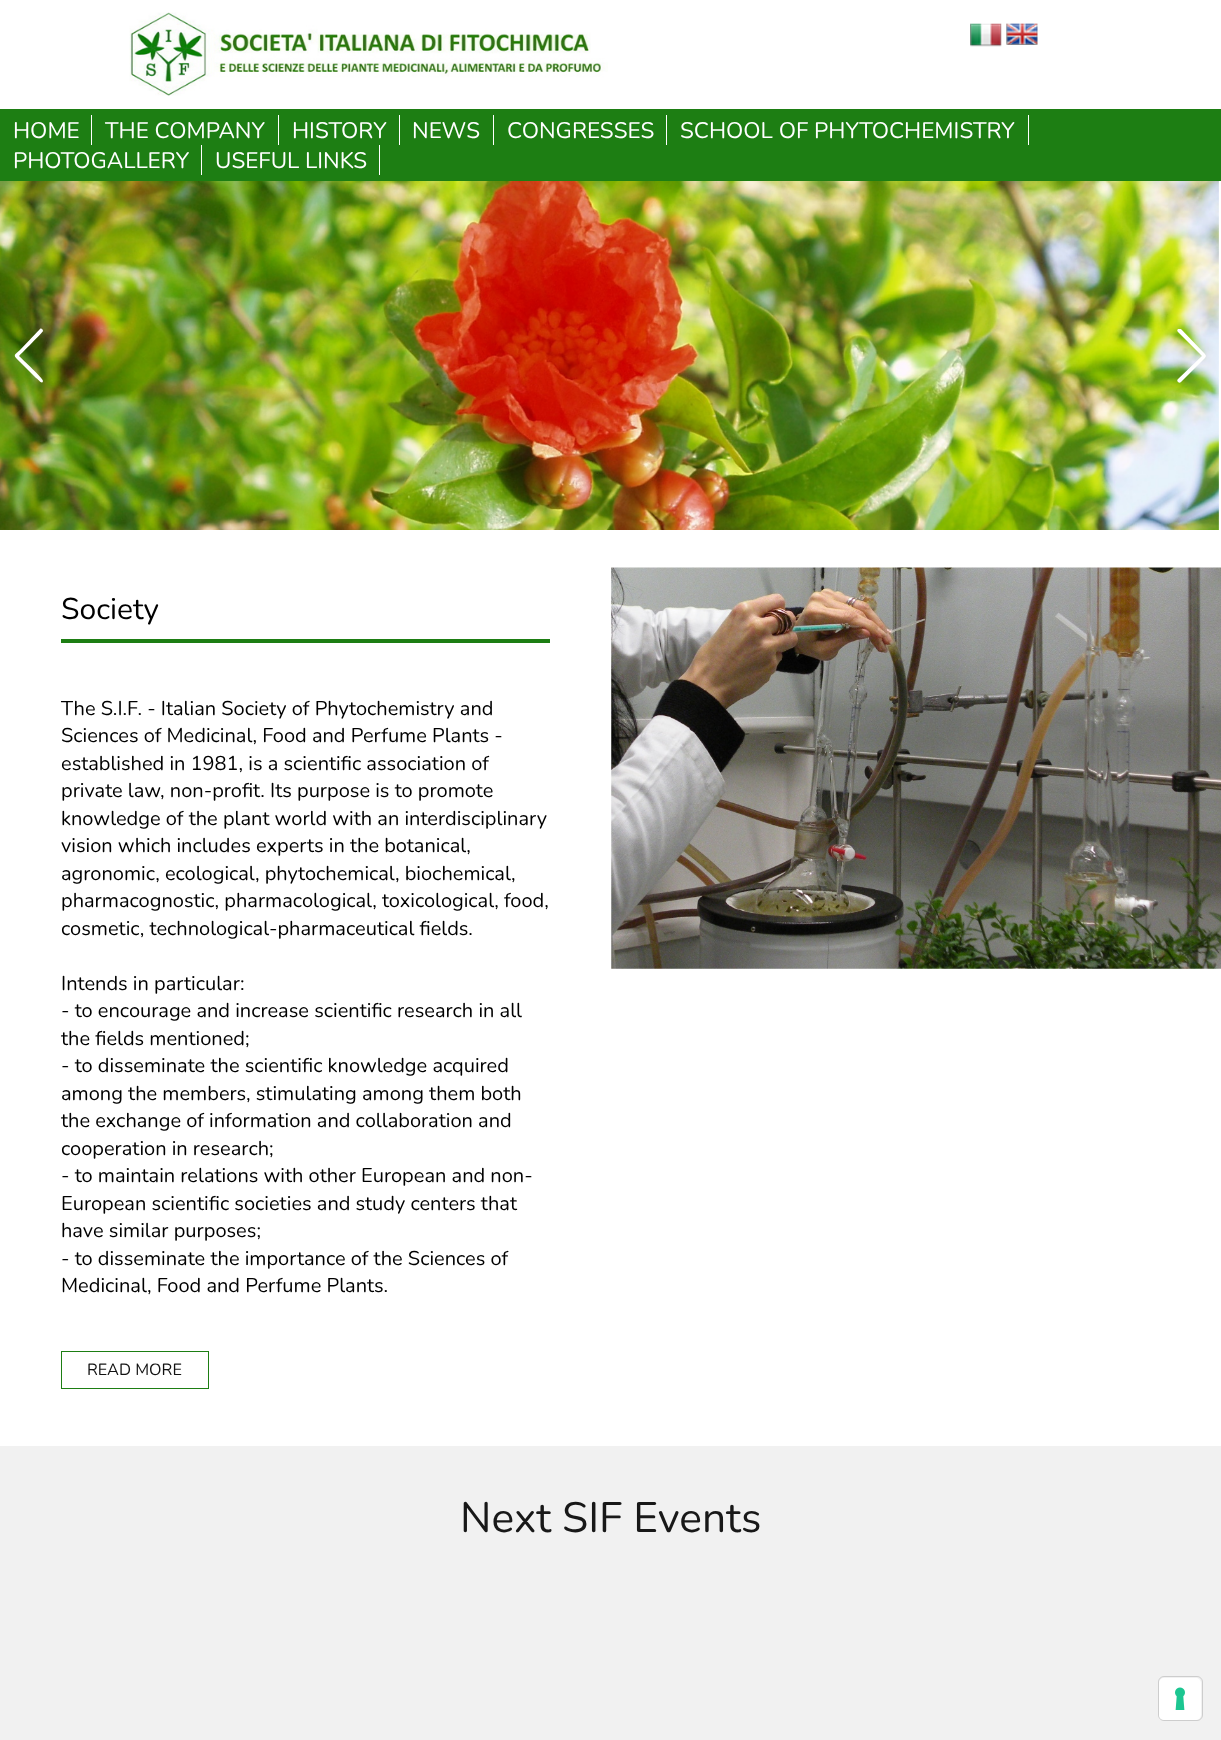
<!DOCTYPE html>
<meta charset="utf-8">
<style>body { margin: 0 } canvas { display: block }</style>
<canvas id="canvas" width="1221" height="1740"></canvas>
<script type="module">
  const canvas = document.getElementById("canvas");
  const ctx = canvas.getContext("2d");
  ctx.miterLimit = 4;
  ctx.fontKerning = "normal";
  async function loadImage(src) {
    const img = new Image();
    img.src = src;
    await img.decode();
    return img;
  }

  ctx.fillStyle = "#ffffff";
  ctx.fillRect(0, 0, 1221, 1740);
  ctx.drawImage(await loadImage("img1.png"), 129, 12, 479, 84);
  ctx.drawImage(await loadImage("img2.png"), 970, 23, 32, 24);
  ctx.drawImage(await loadImage("img3.png"), 1006, 23, 32, 22);
  ctx.fillStyle = "#1d7e13";
  ctx.fillRect(0, 109, 1221, 72);
  ctx.fillStyle = "#ffffff";
  ctx.fillRect(91, 115, 1, 30);
  ctx.font = "22.5px Nunito";
  ctx.fillText("HOME", 13, 138);
  ctx.fillRect(278, 115, 1, 30);
  ctx.fillText("THE COMPANY", 105, 138);
  ctx.fillRect(399, 115, 1, 30);
  ctx.fillText("HISTORY", 292, 138);
  ctx.fillRect(493, 115, 1, 30);
  ctx.fillText("NEWS", 412, 138);
  ctx.fillRect(666, 115, 1, 30);
  ctx.fillText("CONGRESSES", 507, 138);
  ctx.fillRect(1028, 115, 1, 30);
  ctx.fillText("SCHOOL OF PHYTOCHEMISTRY", 680, 138);
  ctx.fillRect(201, 145, 1, 30);
  ctx.fillText("PHOTOGALLERY", 13, 168);
  ctx.fillRect(379, 145, 1, 30);
  ctx.fillText("USEFUL LINKS", 215, 168);
  ctx.drawImage(await loadImage("img4.png"), 0, 181, 1219, 349);
  ctx.beginPath();
  ctx.moveTo(40, 329);
  ctx.bezierCurveTo(41, 328, 43, 329, 43, 331);
  ctx.bezierCurveTo(43, 332, 22, 353, 19, 356);
  ctx.bezierCurveTo(22, 359, 44, 379, 43, 381);
  ctx.bezierCurveTo(42, 385, 39, 380, 36, 378);
  ctx.lineTo(20, 362);
  ctx.bezierCurveTo(13, 355, 13, 356, 20, 350);
  ctx.closePath();
  ctx.fill();
  ctx.beginPath();
  ctx.moveTo(1178, 382);
  ctx.bezierCurveTo(1177, 381, 1177, 380, 1178, 379);
  ctx.lineTo(1202, 356);
  ctx.lineTo(1178, 332);
  ctx.bezierCurveTo(1177, 331, 1177, 330, 1178, 329);
  ctx.bezierCurveTo(1179, 329, 1180, 329, 1181, 329);
  ctx.lineTo(1205, 354);
  ctx.lineTo(1206, 356);
  ctx.lineTo(1205, 358);
  ctx.lineTo(1181, 382);
  ctx.bezierCurveTo(1180, 383, 1179, 383, 1178, 382);
  ctx.closePath();
  ctx.fill();
  ctx.fillStyle = "#1d7e13";
  ctx.fillRect(61, 639, 489, 4);
  ctx.font = "30px Nunito";
  ctx.fillStyle = "#000000";
  ctx.fillText("Society", 61, 619);
  ctx.font = "20px Nunito";
  ctx.fillText("The S.I.F. - Italian Society of Phytochemistry and", 61, 715);
  ctx.fillText("Sciences of Medicinal, Food and Perfume Plants -", 61, 742);
  ctx.fillText("established in 1981, is a scientific association of", 61, 770);
  ctx.fillText("private law, non-profit. Its purpose is to promote", 61, 797);
  ctx.fillText("knowledge of the plant world with an interdisciplinary", 61, 825);
  ctx.fillText("vision which includes experts in the botanical,", 61, 852);
  ctx.fillText("agronomic, ecological, phytochemical, biochemical,", 61, 880);
  ctx.fillText("pharmacognostic, pharmacological, toxicological, food,", 61, 907);
  ctx.fillText("cosmetic, technological-pharmaceutical fields.", 61, 935);
  ctx.fillText("Intends in particular:", 61, 990);
  ctx.fillText("- to encourage and increase scientific research in all", 61, 1017);
  ctx.fillText("the fields mentioned;", 61, 1045);
  ctx.fillText("- to disseminate the scientific knowledge acquired", 61, 1072);
  ctx.fillText("among the members, stimulating among them both", 61, 1100);
  ctx.fillText("the exchange of information and collaboration and", 61, 1127);
  ctx.fillText("cooperation in research;", 61, 1155);
  ctx.fillText("- to maintain relations with other European and non-", 61, 1182);
  ctx.fillText("European scientific societies and study centers that", 61, 1210);
  ctx.fillText("have similar purposes;", 61, 1237);
  ctx.fillText("- to disseminate the importance of the Sciences of", 61, 1265);
  ctx.fillText("Medicinal, Food and Perfume Plants.", 61, 1292);
  ctx.font = "16.25px Nunito";
  ctx.fillStyle = "#111111";
  ctx.fillText("READ MORE", 87, 1375);
  ctx.fillStyle = "#1d7e13";
  ctx.fillRect(61, 1351, 148, 1);
  ctx.fillRect(61, 1388, 122, 1);
  ctx.fillRect(61, 1351, 1, 38);
  ctx.fillRect(208, 1351, 1, 38);
  ctx.fillRect(183, 1388, 26, 1);
  ctx.drawImage(await loadImage("img5.png"), 611, 567, 610, 402);
  ctx.fillStyle = "#f1f1f1";
  ctx.fillRect(0, 1446, 1221, 294);
  ctx.font = "42.5px Nunito";
  ctx.fillStyle = "#181818";
  ctx.fillText("Next SIF Events", 460, 1532);
  ctx.beginPath();
  ctx.roundRect(1158.5, 1676.5, 44, 44, 5.5);
  ctx.strokeStyle = "#cdcdcd";
  ctx.stroke();
  ctx.fillStyle = "#ffffff";
  ctx.beginPath();
  ctx.roundRect(1159, 1678, 42, 42, 5);
  ctx.fill();
  ctx.drawImage(await loadImage("img6.png"), 1175, 1687, 10, 23);
</script>
